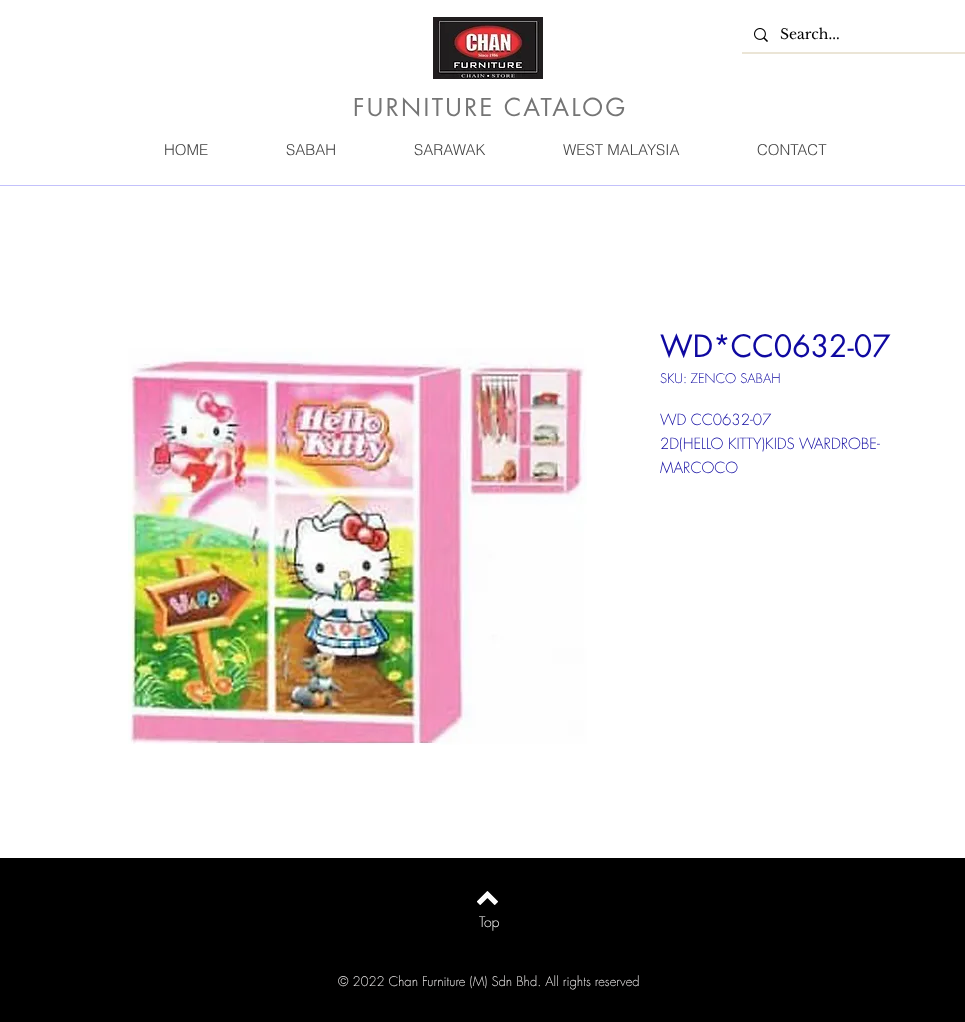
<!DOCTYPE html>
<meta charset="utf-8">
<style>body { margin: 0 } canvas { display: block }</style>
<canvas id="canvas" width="965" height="1022"></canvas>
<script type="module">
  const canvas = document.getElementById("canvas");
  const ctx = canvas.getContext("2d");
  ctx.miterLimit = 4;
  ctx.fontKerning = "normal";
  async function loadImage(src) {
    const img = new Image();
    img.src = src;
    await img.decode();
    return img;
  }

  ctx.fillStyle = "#ffffff";
  ctx.fillRect(0, 0, 965, 1022);
  ctx.drawImage(await loadImage("img1.png"), 433, 17, 110, 62);
  ctx.fillStyle = "#ebe5d6";
  ctx.fillRect(742, 52, 223, 2);
  ctx.drawImage(await loadImage("img2.png"), 754, 28, 14, 14);
  ctx.font = "14px Libre Baskerville";
  ctx.fillStyle = "#000000";
  ctx.fillText("Search...", 780, 39);
  ctx.letterSpacing = "2.4px";
  ctx.font = "24px futura";
  ctx.fillStyle = "#757575";
  ctx.fillText("FURNITURE CATALOG", 353, 116);
  ctx.letterSpacing = "0px";
  ctx.font = "300 15px helvetica";
  ctx.fillStyle = "#444444";
  ctx.fillText("HOME", 164, 155);
  ctx.fillText("SABAH", 286, 155);
  ctx.fillText("SARAWAK", 414, 155);
  ctx.fillText("WEST MALAYSIA", 563, 155);
  ctx.fillText("CONTACT", 757, 155);
  ctx.fillStyle = "#c3c1fb";
  ctx.fillRect(0, 185, 965, 1);
  ctx.drawImage(await loadImage("img3.png"), 128, 348, 459, 397);
  ctx.font = "30px futura";
  ctx.fillStyle = "#0f09a1";
  ctx.fillText("WD*CC0632-07", 660, 357);
  ctx.font = "300 13px futura";
  ctx.fillText("SKU: ZENCO SABAH", 660, 383);
  ctx.font = "300 15px futura";
  ctx.fillText("WD CC0632-07", 660, 425);
  ctx.fillText("2D(HELLO KITTY)KIDS WARDROBE-", 660, 449);
  ctx.fillText("MARCOCO", 660, 473);
  ctx.fillStyle = "#000000";
  ctx.fillRect(0, 858, 965, 164);
  ctx.drawImage(await loadImage("img4.png"), 477, 891, 21, 14);
  ctx.font = "300 14px futura";
  ctx.fillStyle = "#ffffff";
  ctx.fillText("Top", 479, 927);
  ctx.font = "300 13px futura";
  ctx.fillStyle = "#e8e6e6";
  ctx.fillText("© 2022 Chan Furniture (M) Sdn Bhd. All rights reserved", 338, 986);
</script>
